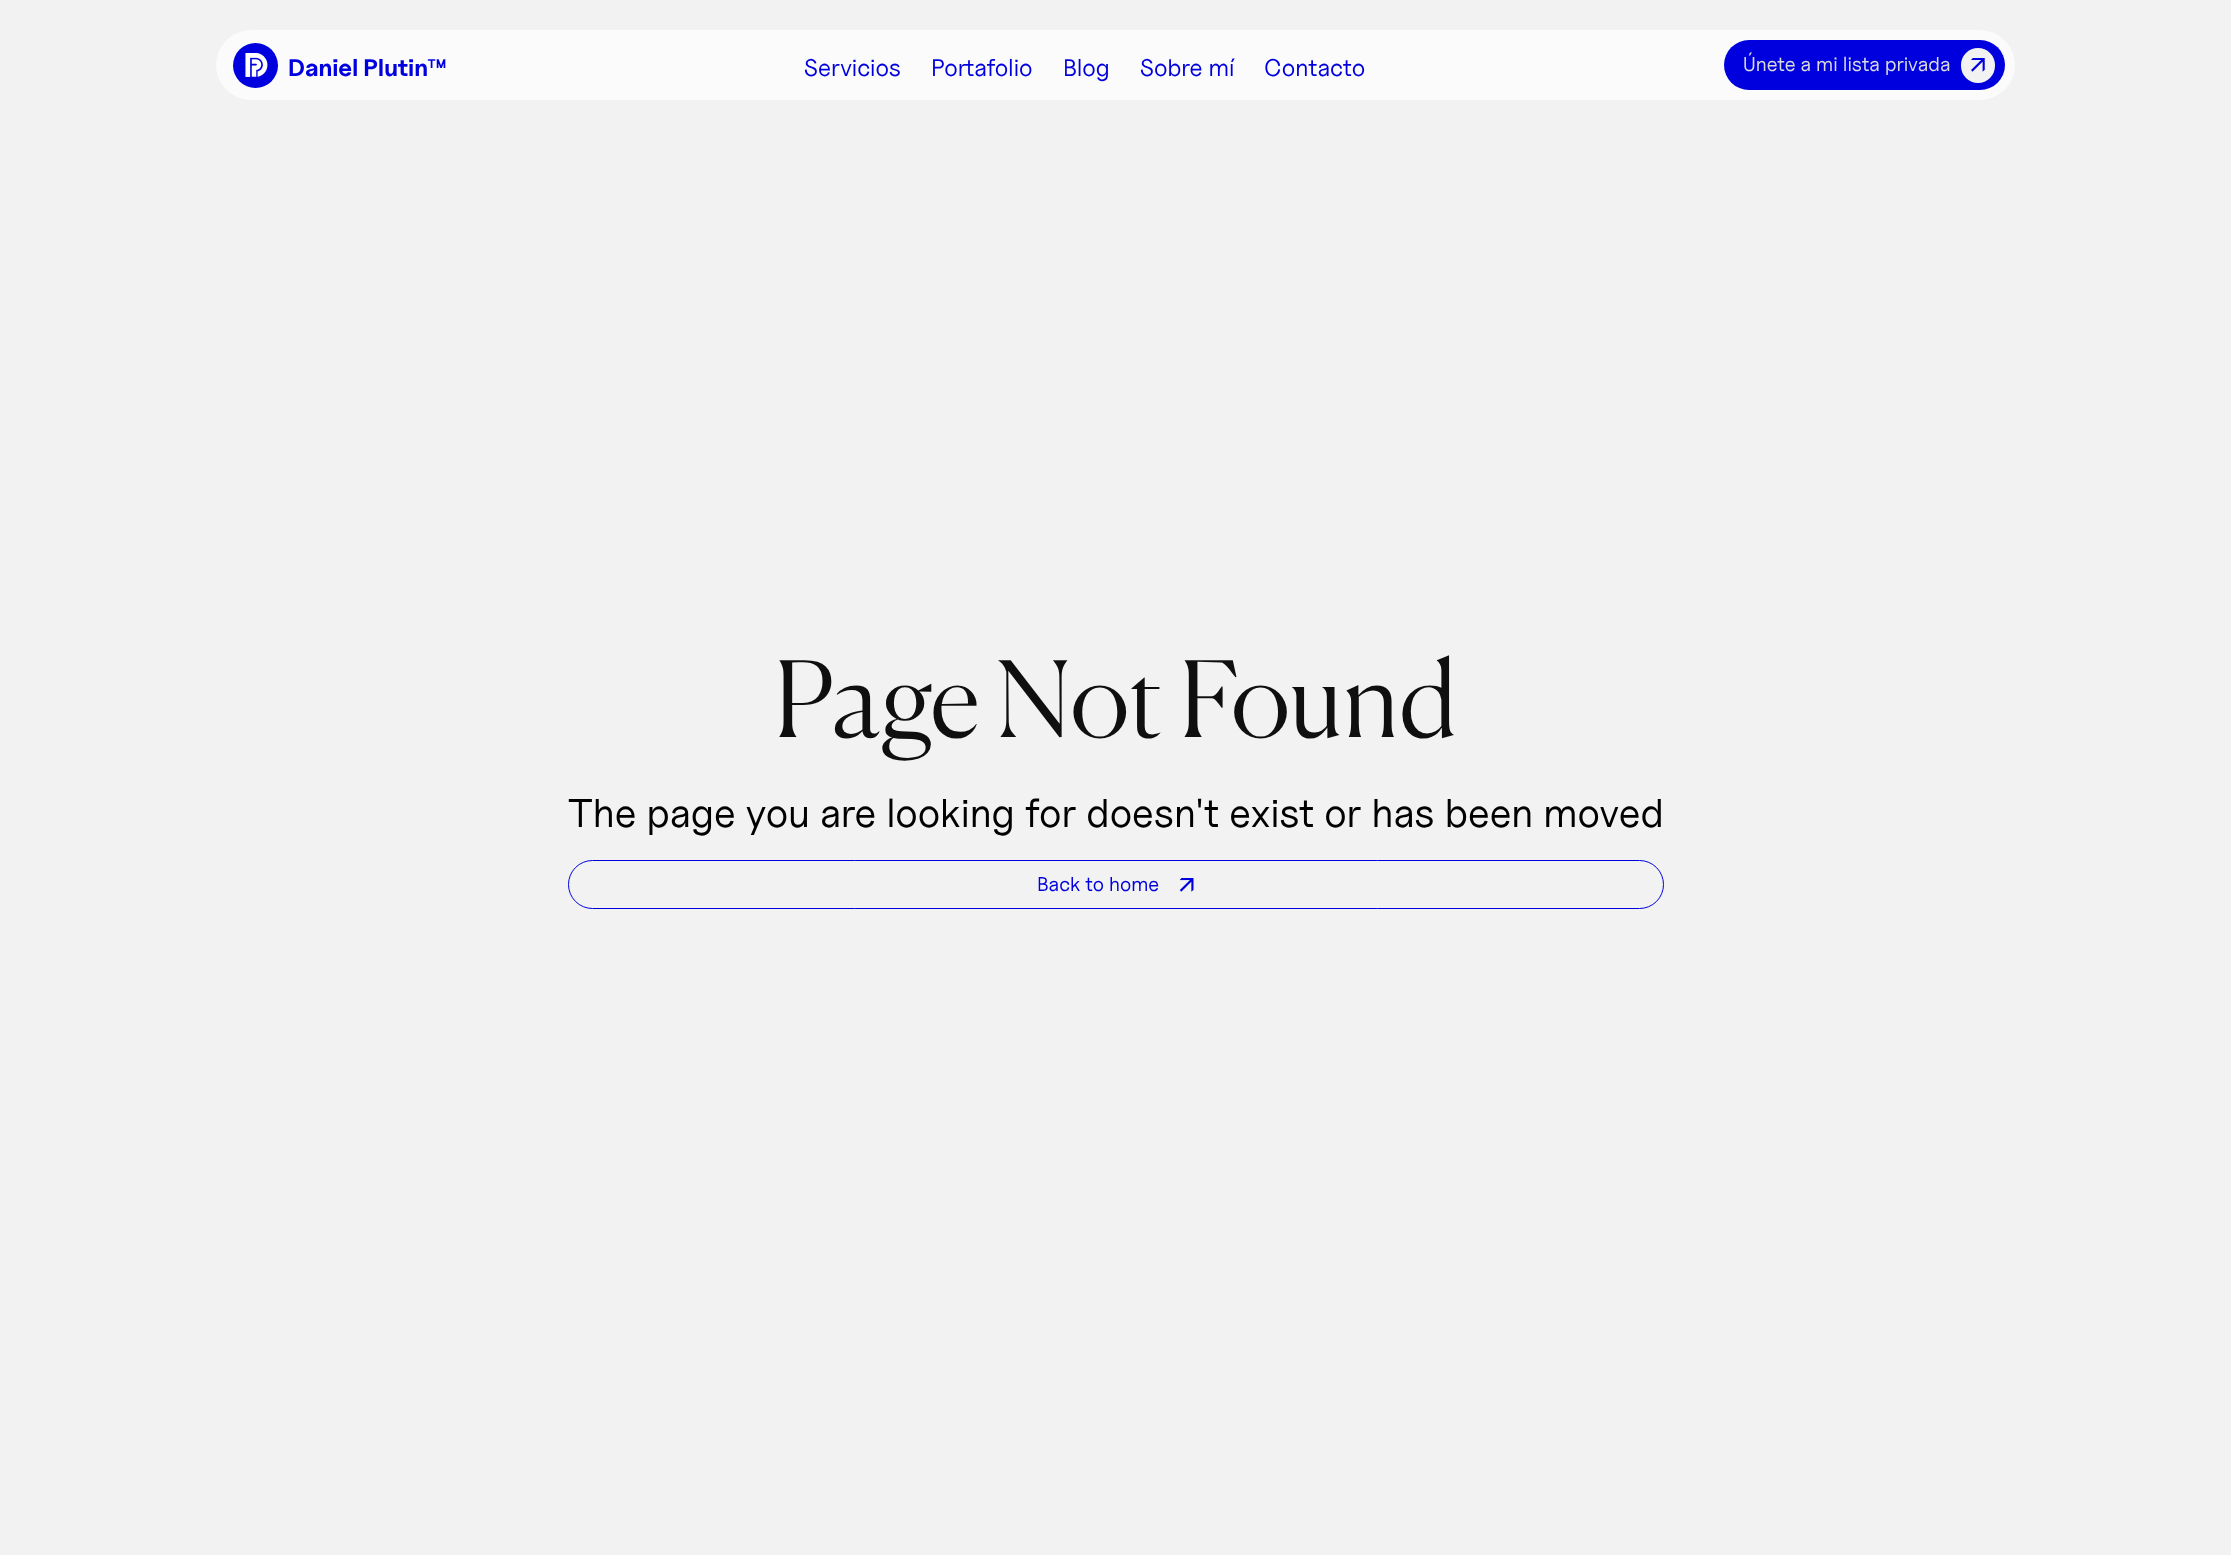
<!DOCTYPE html>
<meta charset="utf-8">
<style>body { margin: 0 } canvas { display: block }</style>
<canvas id="canvas" width="2231" height="1555"></canvas>
<script type="module">
  const canvas = document.getElementById("canvas");
  const ctx = canvas.getContext("2d");
  ctx.miterLimit = 4;
  ctx.fontKerning = "normal";
  async function loadImage(src) {
    const img = new Image();
    img.src = src;
    await img.decode();
    return img;
  }

  ctx.fillStyle = "#f2f2f2";
  ctx.fillRect(0, 0, 2231, 1555);
  ctx.fillStyle = "#fbfbfb";
  ctx.beginPath();
  ctx.roundRect(216, 30, 1799, 70, 35);
  ctx.fill();
  ctx.fillStyle = "#0000df";
  ctx.beginPath();
  ctx.arc(255.5, 65.5, 22.5, 0, Math.PI * 2);
  ctx.fill();
  ctx.drawImage(await loadImage("img1.png"), 245, 53, 23, 24);
  ctx.font = "bold 24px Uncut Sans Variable";
  ctx.fillText("Daniel Plutin™", 288, 76);
  ctx.font = "24px Uncut Sans Variable";
  ctx.fillText("Servicios", 804, 76);
  ctx.fillText("Portafolio", 931, 76);
  ctx.fillText("Blog", 1063, 76);
  ctx.fillText("Sobre mí", 1140, 76);
  ctx.fillText("Contacto", 1264, 76);
  ctx.beginPath();
  ctx.roundRect(1724, 40, 281, 50, 25);
  ctx.fill();
  ctx.font = "20px Uncut Sans Variable";
  ctx.fillStyle = "#dadada";
  ctx.fillText("Únete a mi lista privada", 1743, 71);
  ctx.fillStyle = "#f2f2f2";
  ctx.beginPath();
  ctx.roundRect(1961, 48, 34, 35, 17);
  ctx.fill();
  ctx.drawImage(await loadImage("img2.png"), 1971, 58, 14, 14);
  ctx.font = "300 105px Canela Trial";
  ctx.fillStyle = "#0f0f0f";
  ctx.fillText("Page Not Found", 774, 737);
  ctx.font = "40px Uncut Sans Variable";
  ctx.fillStyle = "#000000";
  ctx.fillText("The page you are looking for doesn't exist or has been moved", 568, 827);
  ctx.beginPath();
  ctx.roundRect(568.5, 860.5, 1095, 48, 24);
  ctx.strokeStyle = "#0000df";
  ctx.stroke();
  ctx.font = "20px Uncut Sans Variable";
  ctx.fillStyle = "#0000df";
  ctx.fillText("Back to home", 1037, 891);
  ctx.drawImage(await loadImage("img3.png"), 1179, 878, 15, 14);
</script>
